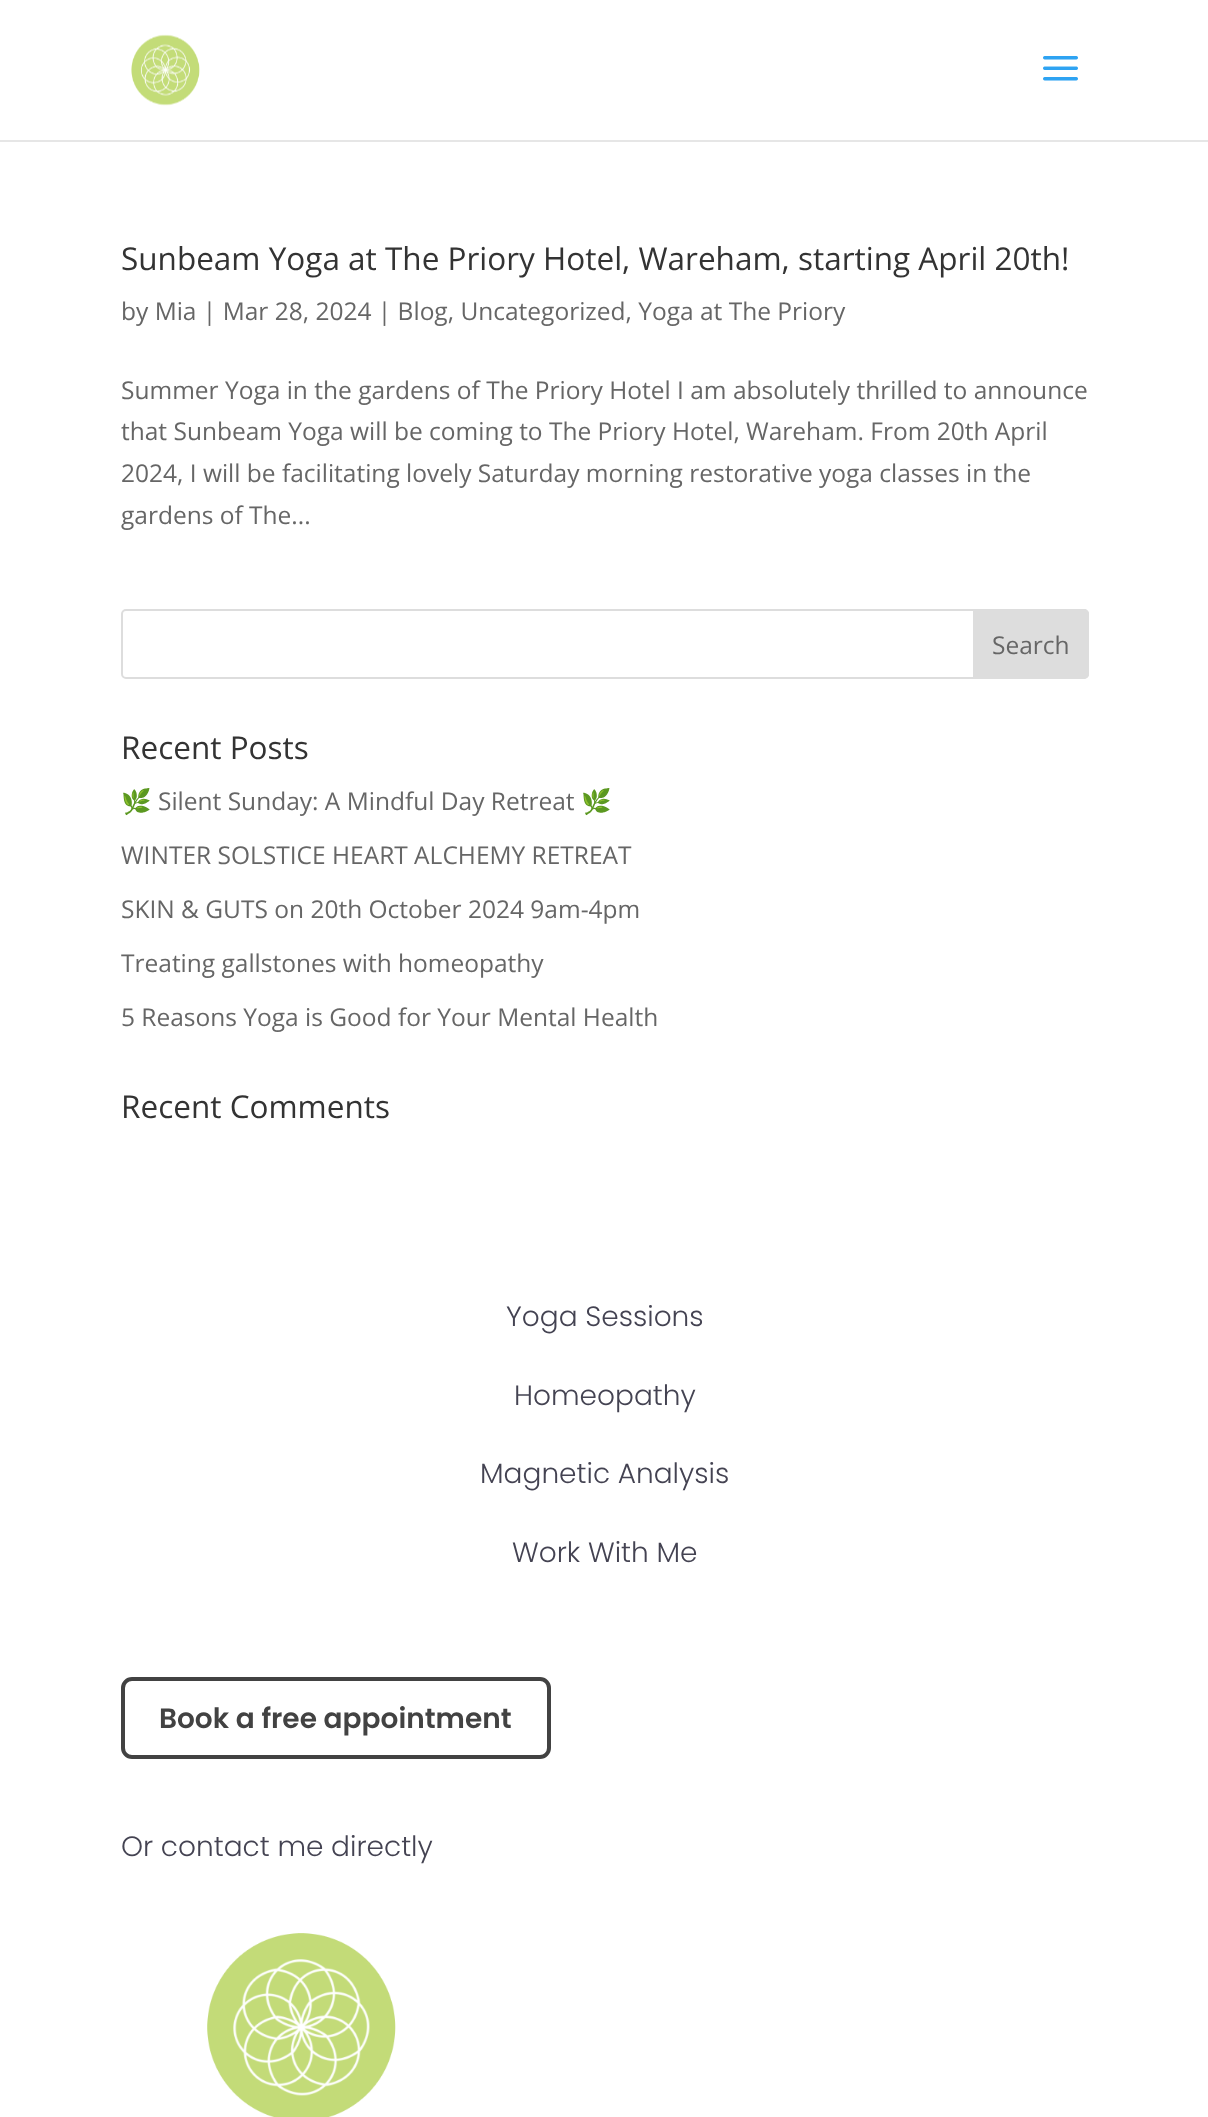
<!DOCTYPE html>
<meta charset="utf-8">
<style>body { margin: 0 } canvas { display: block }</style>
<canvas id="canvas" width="1208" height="2117"></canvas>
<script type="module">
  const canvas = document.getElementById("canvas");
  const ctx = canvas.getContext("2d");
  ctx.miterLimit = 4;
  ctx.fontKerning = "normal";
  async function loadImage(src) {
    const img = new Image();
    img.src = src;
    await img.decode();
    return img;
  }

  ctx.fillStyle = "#ffffff";
  ctx.fillRect(0, 0, 1208, 2117);
  ctx.fillStyle = "#e6e6e6";
  ctx.fillRect(0, 140, 1208, 2);
  ctx.drawImage(await loadImage("img1.png"), 131, 34, 69, 72);
  ctx.drawImage(await loadImage("img2.png"), 1043, 56, 35, 25);
  ctx.font = "31.5px Open Sans";
  ctx.fillStyle = "#333333";
  ctx.fillText("Sunbeam Yoga at The Priory Hotel, Wareham, starting April 20th!", 121, 270);
  ctx.font = "24.5px Open Sans";
  ctx.fillStyle = "#666666";
  ctx.fillText("by Mia | Mar 28, 2024 | Blog, Uncategorized, Yoga at The Priory", 121, 320);
  ctx.fillText("Summer Yoga in the gardens of The Priory Hotel I am absolutely thrilled to announce", 121, 399);
  ctx.fillText("that Sunbeam Yoga will be coming to The Priory Hotel, Wareham. From 20th April", 121, 440);
  ctx.fillText("2024, I will be facilitating lovely Saturday morning restorative yoga classes in the", 121, 482);
  ctx.fillText("gardens of The...", 121, 524);
  ctx.beginPath();
  ctx.roundRect(122, 610, 966, 68, 4);
  ctx.strokeStyle = "#dddddd";
  ctx.lineWidth = 2;
  ctx.stroke();
  ctx.fillStyle = "#dddddd";
  ctx.beginPath();
  ctx.roundRect(974, 610, 114, 68, [0, 4, 4, 0]);
  ctx.fill();
  ctx.stroke();
  ctx.fillStyle = "#666666";
  ctx.fillText("Search", 992, 654);
  ctx.font = "31.5px Open Sans";
  ctx.fillStyle = "#333333";
  ctx.fillText("Recent Posts", 121, 759);
  ctx.font = "24.5px Noto Color Emoji";
  ctx.fillStyle = "#666666";
  ctx.fillText("🌿", 121, 810);
  ctx.font = "24.5px Open Sans";
  ctx.fillText("Silent Sunday: A Mindful Day Retreat", 158, 810);
  ctx.font = "24.5px Noto Color Emoji";
  ctx.fillText("🌿", 581, 810);
  ctx.font = "24.5px Open Sans";
  ctx.fillText("WINTER SOLSTICE HEART ALCHEMY RETREAT", 121, 864);
  ctx.fillText("SKIN & GUTS on 20th October 2024 9am-4pm", 121, 918);
  ctx.fillText("Treating gallstones with homeopathy", 121, 972);
  ctx.fillText("5 Reasons Yoga is Good for Your Mental Health", 121, 1026);
  ctx.font = "31.5px Open Sans";
  ctx.fillStyle = "#333333";
  ctx.fillText("Recent Comments", 121, 1118);
  ctx.font = "300 28px Poppins";
  ctx.fillStyle = "#444352";
  ctx.fillText("Yoga Sessions", 506, 1326);
  ctx.fillText("Homeopathy", 514, 1405);
  ctx.fillText("Magnetic Analysis", 480, 1483);
  ctx.fillText("Work With Me", 512, 1562);
  ctx.beginPath();
  ctx.roundRect(123, 1679, 426, 78, 9);
  ctx.strokeStyle = "#424242";
  ctx.lineWidth = 4;
  ctx.stroke();
  ctx.font = "600 28px Poppins";
  ctx.fillStyle = "#424242";
  ctx.fillText("Book a free appointment", 159, 1728);
  ctx.font = "300 28px Poppins";
  ctx.fillStyle = "#444352";
  ctx.fillText("Or contact me directly", 121, 1856);
  ctx.drawImage(await loadImage("img3.png"), 207, 1933, 189, 184);
</script>
